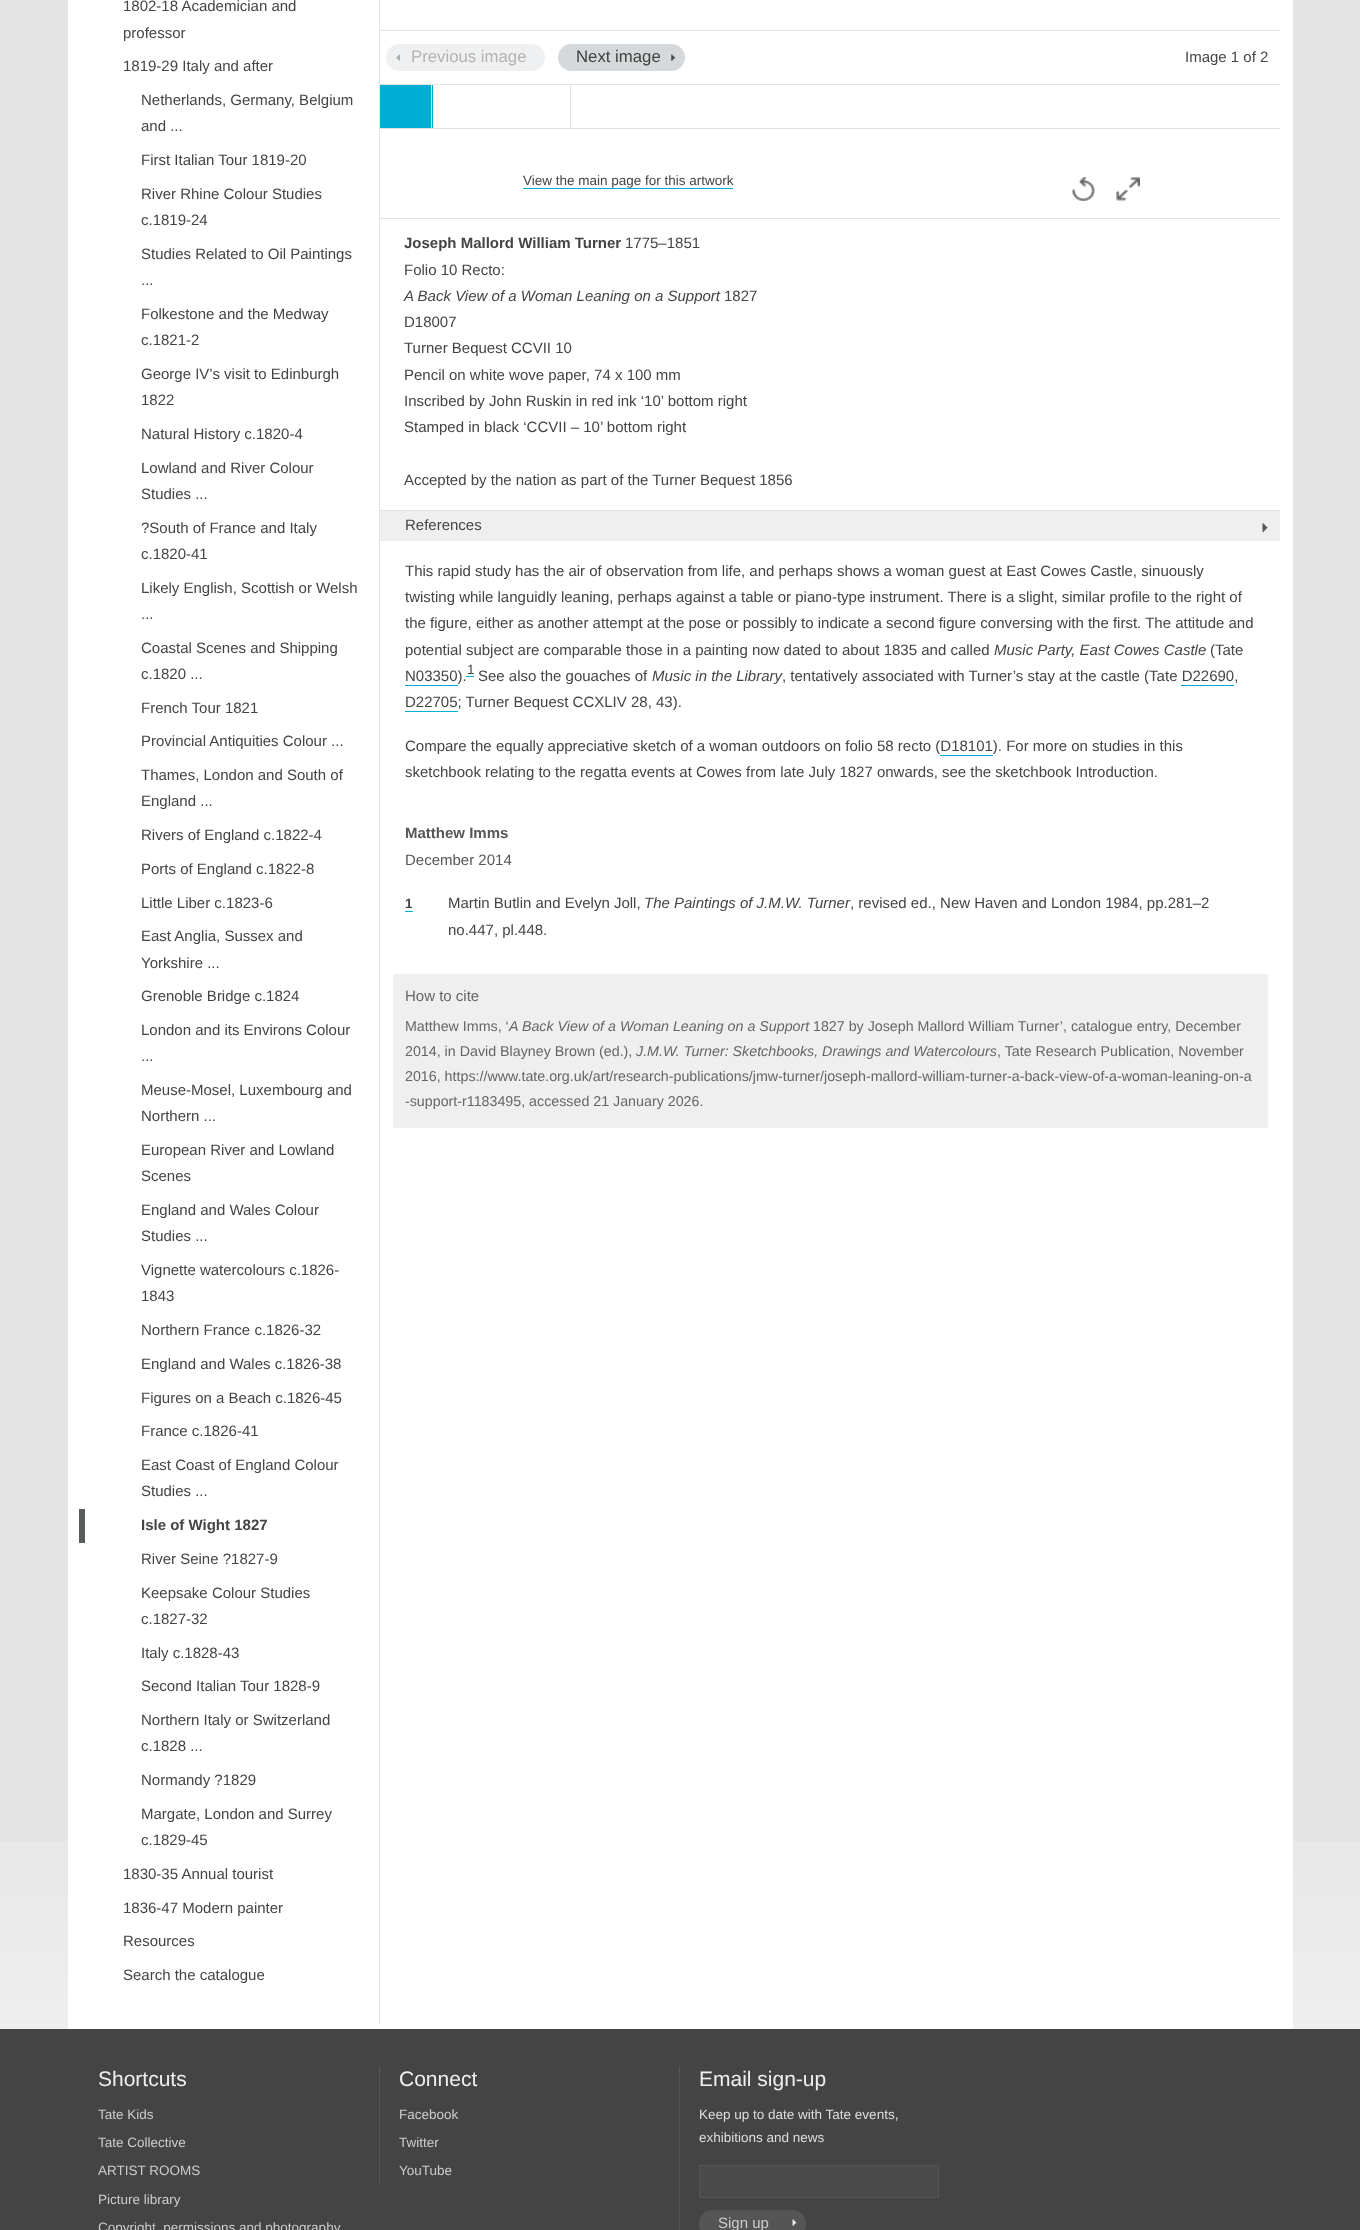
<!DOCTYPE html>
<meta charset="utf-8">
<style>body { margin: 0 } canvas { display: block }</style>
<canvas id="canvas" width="1360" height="2230"></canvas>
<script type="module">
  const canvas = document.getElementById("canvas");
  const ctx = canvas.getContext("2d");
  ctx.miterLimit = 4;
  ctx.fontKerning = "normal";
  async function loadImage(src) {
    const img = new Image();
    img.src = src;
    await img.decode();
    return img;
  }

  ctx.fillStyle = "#e4e4e4";
  ctx.fillRect(0, 0, 1360, 2230);
  ctx.drawImage(await loadImage("img1.png"), 0, 1842, 1360, 187);
  ctx.fillStyle = "#ffffff";
  ctx.fillRect(68, 0, 1225, 2029);
  ctx.fillStyle = "#e5e2de";
  ctx.fillRect(379, 0, 1, 2024);
  ctx.font = "15px Liberation Sans";
  ctx.fillStyle = "#444444";
  ctx.fillText("1802-18 Academician and", 123, 11);
  ctx.fillText("professor", 123, 38);
  ctx.fillText("1819-29 Italy and after", 123, 71);
  ctx.fillText("Netherlands, Germany, Belgium", 141, 105);
  ctx.fillText("and ...", 141, 131);
  ctx.fillText("First Italian Tour 1819-20", 141, 165);
  ctx.fillText("River Rhine Colour Studies", 141, 199);
  ctx.fillText("c.1819-24", 141, 225);
  ctx.fillText("Studies Related to Oil Paintings", 141, 259);
  ctx.fillText("...", 141, 285);
  ctx.fillText("Folkestone and the Medway", 141, 319);
  ctx.fillText("c.1821-2", 141, 345);
  ctx.fillText("George IV’s visit to Edinburgh", 141, 379);
  ctx.fillText("1822", 141, 405);
  ctx.fillText("Natural History c.1820-4", 141, 439);
  ctx.fillText("Lowland and River Colour", 141, 473);
  ctx.fillText("Studies ...", 141, 499);
  ctx.fillText("?South of France and Italy", 141, 533);
  ctx.fillText("c.1820-41", 141, 559);
  ctx.fillText("Likely English, Scottish or Welsh", 141, 593);
  ctx.fillText("...", 141, 619);
  ctx.fillText("Coastal Scenes and Shipping", 141, 653);
  ctx.fillText("c.1820 ...", 141, 679);
  ctx.fillText("French Tour 1821", 141, 713);
  ctx.fillText("Provincial Antiquities Colour ...", 141, 746);
  ctx.fillText("Thames, London and South of", 141, 780);
  ctx.fillText("England ...", 141, 806);
  ctx.fillText("Rivers of England c.1822-4", 141, 840);
  ctx.fillText("Ports of England c.1822-8", 141, 874);
  ctx.fillText("Little Liber c.1823-6", 141, 908);
  ctx.fillText("East Anglia, Sussex and", 141, 941);
  ctx.fillText("Yorkshire ...", 141, 968);
  ctx.fillText("Grenoble Bridge c.1824", 141, 1001);
  ctx.fillText("London and its Environs Colour", 141, 1035);
  ctx.fillText("...", 141, 1061);
  ctx.fillText("Meuse-Mosel, Luxembourg and", 141, 1095);
  ctx.fillText("Northern ...", 141, 1121);
  ctx.fillText("European River and Lowland", 141, 1155);
  ctx.fillText("Scenes", 141, 1181);
  ctx.fillText("England and Wales Colour", 141, 1215);
  ctx.fillText("Studies ...", 141, 1241);
  ctx.fillText("Vignette watercolours c.1826-", 141, 1275);
  ctx.fillText("1843", 141, 1301);
  ctx.fillText("Northern France c.1826-32", 141, 1335);
  ctx.fillText("England and Wales c.1826-38", 141, 1369);
  ctx.fillText("Figures on a Beach c.1826-45", 141, 1403);
  ctx.fillText("France c.1826-41", 141, 1436);
  ctx.fillText("East Coast of England Colour", 141, 1470);
  ctx.fillText("Studies ...", 141, 1496);
  ctx.fillStyle = "#585b5c";
  ctx.fillRect(79, 1509, 6, 34);
  ctx.font = "bold 15px Liberation Sans";
  ctx.fillStyle = "#444444";
  ctx.fillText("Isle of Wight 1827", 141, 1530);
  ctx.font = "15px Liberation Sans";
  ctx.fillText("River Seine ?1827-9", 141, 1564);
  ctx.fillText("Keepsake Colour Studies", 141, 1598);
  ctx.fillText("c.1827-32", 141, 1624);
  ctx.fillText("Italy c.1828-43", 141, 1658);
  ctx.fillText("Second Italian Tour 1828-9", 141, 1691);
  ctx.fillText("Northern Italy or Switzerland", 141, 1725);
  ctx.fillText("c.1828 ...", 141, 1751);
  ctx.fillText("Normandy ?1829", 141, 1785);
  ctx.fillText("Margate, London and Surrey", 141, 1819);
  ctx.fillText("c.1829-45", 141, 1845);
  ctx.fillText("1830-35 Annual tourist", 123, 1879);
  ctx.fillText("1836-47 Modern painter", 123, 1913);
  ctx.fillText("Resources", 123, 1946);
  ctx.fillText("Search the catalogue", 123, 1980);
  ctx.fillStyle = "#e5e2de";
  ctx.fillRect(380, 218, 900, 1);
  ctx.fillRect(380, 30, 900, 1);
  ctx.fillStyle = "#eff0f1";
  ctx.beginPath();
  ctx.roundRect(386, 44, 159, 27, 13.5);
  ctx.fill();
  ctx.drawImage(await loadImage("img2.png"), 396, 54, 4, 7);
  ctx.font = "16.75px Liberation Sans";
  ctx.fillStyle = "#b3b4b2";
  ctx.fillText("Previous image", 411, 62);
  ctx.fillStyle = "#d6d9dc";
  ctx.beginPath();
  ctx.roundRect(558, 44, 127, 27, 13.5);
  ctx.fill();
  ctx.drawImage(await loadImage("img3.png"), 671, 54, 5, 7);
  ctx.fillStyle = "#42433e";
  ctx.fillText("Next image", 576, 62);
  ctx.font = "15px Liberation Sans";
  ctx.fillStyle = "#444444";
  ctx.fillText("Image 1 of 2", 1185, 62);
  ctx.fillStyle = "#e5e2de";
  ctx.fillRect(380, 84, 900, 1);
  ctx.fillRect(380, 128, 900, 1);
  ctx.fillStyle = "#00aed3";
  ctx.fillRect(380, 85, 53, 43);
  ctx.fillStyle = "#e5e2de";
  ctx.fillRect(431, 85, 1, 43);
  ctx.fillRect(570, 85, 1, 43);
  ctx.font = "13.5px Liberation Sans";
  ctx.fillStyle = "#444444";
  ctx.fillText("View the main page for this artwork", 523, 185);
  ctx.fillStyle = "#00aed3";
  ctx.fillRect(523, 188, 210, 1);
  ctx.drawImage(await loadImage("img4.png"), 1072, 177, 23, 24);
  ctx.drawImage(await loadImage("img5.png"), 1116, 177, 24, 24);
  ctx.font = "bold 15px Liberation Sans";
  ctx.fillStyle = "#444444";
  ctx.fillText("Joseph Mallord William Turner", 404, 248);
  ctx.font = "15px Liberation Sans";
  ctx.fillText("1775–1851", 625, 248);
  ctx.fillText("Folio 10 Recto:", 404, 275);
  ctx.font = "italic 15px Liberation Sans";
  ctx.fillText("A Back View of a Woman Leaning on a Support", 404, 301);
  ctx.font = "15px Liberation Sans";
  ctx.fillText("1827", 724, 301);
  ctx.fillText("D18007", 404, 327);
  ctx.fillText("Turner Bequest CCVII 10", 404, 353);
  ctx.fillText("Pencil on white wove paper, 74 x 100 mm", 404, 380);
  ctx.fillText("Inscribed by John Ruskin in red ink ‘10’ bottom right", 404, 406);
  ctx.fillText("Stamped in black ‘CCVII – 10’ bottom right", 404, 432);
  ctx.fillText("Accepted by the nation as part of the Turner Bequest 1856", 404, 485);
  ctx.fillStyle = "#efefef";
  ctx.fillRect(380, 511, 900, 30);
  ctx.fillStyle = "#e5e2de";
  ctx.fillRect(380, 510, 900, 1);
  ctx.fillStyle = "#444444";
  ctx.fillText("References", 405, 530);
  ctx.drawImage(await loadImage("img6.png"), 1262, 523, 6, 10);
  ctx.fillText("This rapid study has the air of observation from life, and perhaps shows a woman guest at East Cowes Castle, sinuously", 405, 576);
  ctx.fillText("twisting while languidly leaning, perhaps against a table or piano-type instrument. There is a slight, similar profile to the right of", 405, 602);
  ctx.fillText("the figure, either as another attempt at the pose or possibly to indicate a second figure conversing with the first. The attitude and", 405, 628);
  ctx.fillText("potential subject are comparable those in a painting now dated to about 1835 and called", 405, 655);
  ctx.font = "italic 15px Liberation Sans";
  ctx.fillText("Music Party, East Cowes Castle", 994, 655);
  ctx.font = "15px Liberation Sans";
  ctx.fillText("(Tate", 1210, 655);
  ctx.font = "13.5px Liberation Sans";
  ctx.fillText("1", 467, 674);
  ctx.fillStyle = "#00aed3";
  ctx.fillRect(466, 676, 8, 1);
  ctx.font = "15px Liberation Sans";
  ctx.fillStyle = "#444444";
  ctx.fillText("N03350).", 405, 681);
  ctx.fillStyle = "#00aed3";
  ctx.fillRect(405, 685, 53, 1);
  ctx.fillStyle = "#444444";
  ctx.fillText("See also the gouaches of", 478, 681);
  ctx.font = "italic 15px Liberation Sans";
  ctx.fillText("Music in the Library", 652, 681);
  ctx.font = "15px Liberation Sans";
  ctx.fillText(", tentatively associated with Turner’s stay at the castle (Tate D22690,", 782, 681);
  ctx.fillStyle = "#00aed3";
  ctx.fillRect(1181, 685, 53, 1);
  ctx.fillStyle = "#444444";
  ctx.fillText("D22705; Turner Bequest CCXLIV 28, 43).", 405, 707);
  ctx.fillStyle = "#00aed3";
  ctx.fillRect(405, 711, 53, 1);
  ctx.fillStyle = "#444444";
  ctx.fillText("Compare the equally appreciative sketch of a woman outdoors on folio 58 recto (D18101). For more on studies in this", 405, 751);
  ctx.fillStyle = "#00aed3";
  ctx.fillRect(940, 755, 53, 1);
  ctx.fillStyle = "#444444";
  ctx.fillText("sketchbook relating to the regatta events at Cowes from late July 1827 onwards, see the sketchbook Introduction.", 405, 777);
  ctx.font = "bold 15px Liberation Sans";
  ctx.fillStyle = "#565656";
  ctx.fillText("Matthew Imms", 405, 838);
  ctx.font = "15px Liberation Sans";
  ctx.fillText("December 2014", 405, 865);
  ctx.font = "bold 13.5px Liberation Sans";
  ctx.fillStyle = "#444444";
  ctx.fillText("1", 405, 908);
  ctx.fillStyle = "#00aed3";
  ctx.fillRect(405, 911, 8, 1);
  ctx.font = "15px Liberation Sans";
  ctx.fillStyle = "#444444";
  ctx.fillText("Martin Butlin and Evelyn Joll,", 448, 908);
  ctx.font = "italic 15px Liberation Sans";
  ctx.fillText("The Paintings of J.M.W. Turner", 644, 908);
  ctx.font = "15px Liberation Sans";
  ctx.fillText(", revised ed., New Haven and London 1984, pp.281–2", 850, 908);
  ctx.fillText("no.447, pl.448.", 448, 935);
  ctx.fillStyle = "#efefef";
  ctx.fillRect(393, 974, 875, 154);
  ctx.fillStyle = "#666666";
  ctx.fillText("How to cite", 405, 1001);
  ctx.font = "14.25px Liberation Sans";
  ctx.fillText("Matthew Imms, ‘", 405, 1031);
  ctx.font = "italic 14.25px Liberation Sans";
  ctx.fillText("A Back View of a Woman Leaning on a Support", 509, 1031);
  ctx.font = "14.25px Liberation Sans";
  ctx.fillText("1827 by Joseph Mallord William Turner’, catalogue entry, December", 813, 1031);
  ctx.fillText("2014, in David Blayney Brown (ed.),", 405, 1056);
  ctx.font = "italic 14.25px Liberation Sans";
  ctx.fillText("J.M.W. Turner: Sketchbooks, Drawings and Watercolours", 636, 1056);
  ctx.font = "14.25px Liberation Sans";
  ctx.fillText(", Tate Research Publication, November", 997, 1056);
  ctx.fillText("2016, https://www.tate.org.uk/art/research-publications/jmw-turner/joseph-mallord-william", 405, 1081);
  ctx.fillText("-turner-a-back-view-of-a-woman-leaning-on-a", 965, 1081);
  ctx.fillText("-support-r1183495, accessed 21 January 2026.", 405, 1106);
  ctx.fillStyle = "#444444";
  ctx.fillRect(0, 2029, 1360, 201);
  ctx.font = "21px Liberation Sans";
  ctx.fillStyle = "#efefef";
  ctx.fillText("Shortcuts", 98, 2086);
  ctx.font = "13.5px Liberation Sans";
  ctx.fillStyle = "#cccccc";
  ctx.fillText("Tate Kids", 98, 2119);
  ctx.fillText("Tate Collective", 98, 2147);
  ctx.fillText("ARTIST ROOMS", 98, 2175);
  ctx.fillText("Picture library", 98, 2204);
  ctx.fillText("Copyright, permissions and photography", 98, 2232);
  ctx.fillStyle = "#555555";
  ctx.fillRect(379, 2066, 1, 119);
  ctx.font = "21px Liberation Sans";
  ctx.fillStyle = "#efefef";
  ctx.fillText("Connect", 399, 2086);
  ctx.font = "13.5px Liberation Sans";
  ctx.fillStyle = "#cccccc";
  ctx.fillText("Facebook", 399, 2119);
  ctx.fillText("Twitter", 399, 2147);
  ctx.fillText("YouTube", 399, 2175);
  ctx.fillStyle = "#555555";
  ctx.fillRect(679, 2066, 1, 164);
  ctx.font = "21px Liberation Sans";
  ctx.fillStyle = "#efefef";
  ctx.fillText("Email sign-up", 699, 2086);
  ctx.font = "13.5px Liberation Sans";
  ctx.fillStyle = "#dedede";
  ctx.fillText("Keep up to date with Tate events,", 699, 2119);
  ctx.fillText("exhibitions and news", 699, 2142);
  ctx.fillStyle = "#4a4a4a";
  ctx.beginPath();
  ctx.rect(699.5, 2165.5, 239, 32);
  ctx.fill();
  ctx.strokeStyle = "#555555";
  ctx.stroke();
  ctx.fillStyle = "#555555";
  ctx.beginPath();
  ctx.roundRect(699, 2210, 107, 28, 14);
  ctx.fill();
  ctx.drawImage(await loadImage("img7.png"), 792, 2219, 5, 7);
  ctx.font = "15px Liberation Sans";
  ctx.fillStyle = "#cccccc";
  ctx.fillText("Sign up", 718, 2228);
</script>
